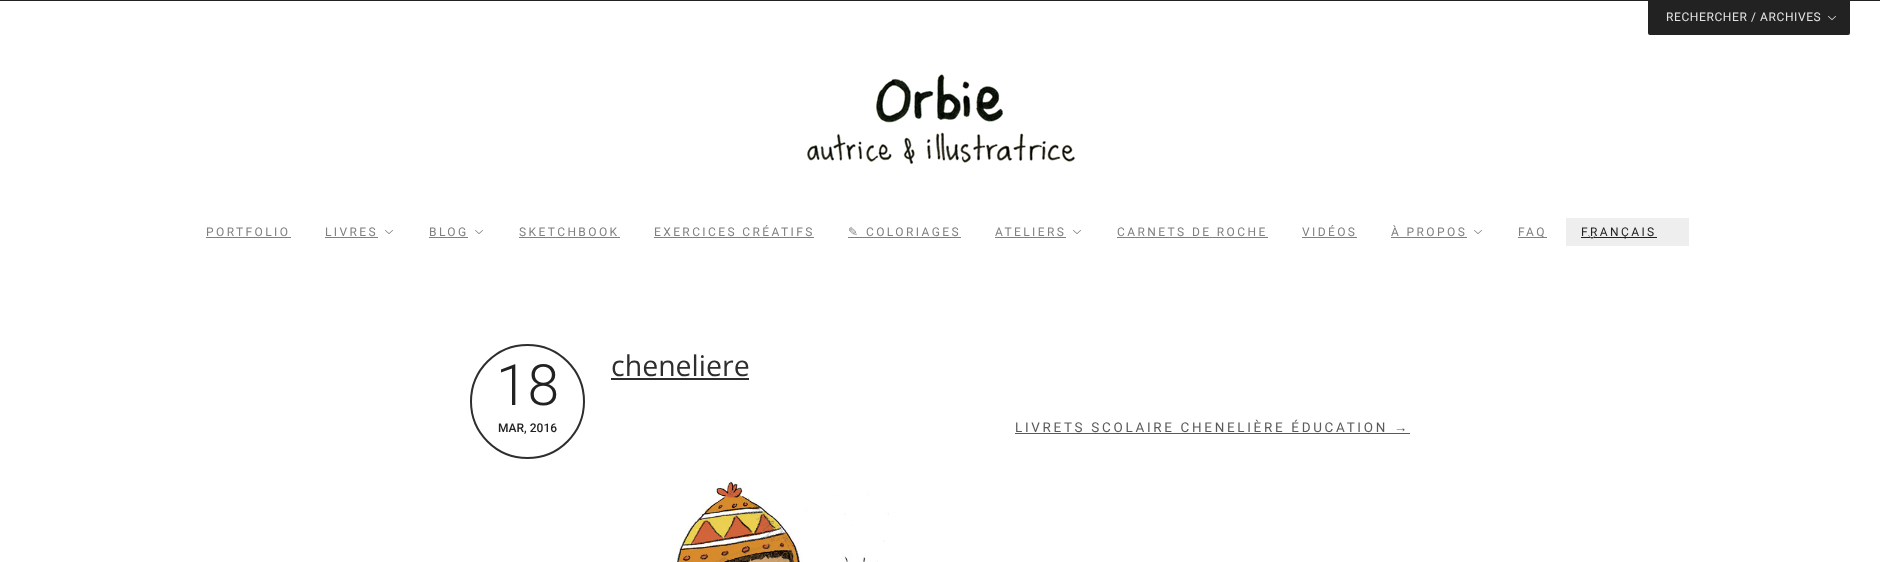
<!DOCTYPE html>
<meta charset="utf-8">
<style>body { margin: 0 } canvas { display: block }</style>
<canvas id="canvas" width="1880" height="562"></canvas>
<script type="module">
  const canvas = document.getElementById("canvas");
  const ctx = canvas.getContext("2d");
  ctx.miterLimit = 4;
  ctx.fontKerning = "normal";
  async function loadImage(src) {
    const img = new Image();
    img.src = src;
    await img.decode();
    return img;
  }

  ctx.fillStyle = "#ffffff";
  ctx.fillRect(0, 0, 1880, 562);
  ctx.fillStyle = "#222222";
  ctx.fillRect(0, 0, 1880, 1);
  ctx.beginPath();
  ctx.roundRect(1648, 0, 202, 35, [0, 0, 2, 2]);
  ctx.fill();
  ctx.letterSpacing = "0.6px";
  ctx.font = "12px Roboto";
  ctx.fillStyle = "#e4e4e4";
  ctx.fillText("RECHERCHER / ARCHIVES", 1666, 21);
  ctx.drawImage(await loadImage("img1.png"), 1828, 16, 8, 4);
  ctx.drawImage(await loadImage("img2.png"), 807, 74, 268, 90);
  ctx.letterSpacing = "2.4px";
  ctx.fillStyle = "#808080";
  ctx.fillText("PORTFOLIO", 206, 236);
  ctx.fillRect(206, 237, 85, 1);
  ctx.fillText("LIVRES", 325, 236);
  ctx.fillRect(325, 237, 53, 1);
  ctx.drawImage(await loadImage("img3.png"), 385, 230, 8, 4);
  ctx.fillText("BLOG", 429, 236);
  ctx.fillRect(429, 237, 39, 1);
  ctx.drawImage(await loadImage("img3.png"), 475, 230, 8, 4);
  ctx.fillText("SKETCHBOOK", 519, 236);
  ctx.fillRect(519, 237, 101, 1);
  ctx.fillText("EXERCICES CRÉATIFS", 654, 236);
  ctx.fillRect(654, 237, 160, 1);
  ctx.font = "12px DejaVu Sans";
  ctx.fillText("✎", 848, 236);
  ctx.font = "12px Roboto";
  ctx.fillText("COLORIAGES", 866, 236);
  ctx.fillRect(848, 237, 113, 1);
  ctx.fillText("ATELIERS", 995, 236);
  ctx.fillRect(995, 237, 71, 1);
  ctx.drawImage(await loadImage("img3.png"), 1073, 230, 8, 4);
  ctx.fillText("CARNETS DE ROCHE", 1117, 236);
  ctx.fillRect(1117, 237, 151, 1);
  ctx.fillText("VIDÉOS", 1302, 236);
  ctx.fillRect(1302, 237, 55, 1);
  ctx.fillText("À PROPOS", 1391, 236);
  ctx.fillRect(1391, 237, 76, 1);
  ctx.drawImage(await loadImage("img3.png"), 1474, 230, 8, 4);
  ctx.fillRect(1518, 237, 29, 1);
  ctx.fillText("FAQ", 1518, 236);
  ctx.fillStyle = "#eeeeee";
  ctx.fillRect(1566, 218, 123, 28);
  ctx.fillStyle = "#222222";
  ctx.fillRect(1581, 237, 76, 1);
  ctx.fillText("FRANÇAIS", 1581, 236);
  ctx.drawImage(await loadImage("img4.png"), 1588, 235, 8, 4);
  ctx.beginPath();
  ctx.arc(527.5, 401.5, 56.5, 0, Math.PI * 2);
  ctx.strokeStyle = "#2e2e2e";
  ctx.lineWidth = 2;
  ctx.stroke();
  ctx.letterSpacing = "0px";
  ctx.font = "300 57px Roboto";
  ctx.fillText("18", 496, 405);
  ctx.font = "500 12px Roboto";
  ctx.fillText("MAR, 2016", 498, 432);
  ctx.font = "28.5px Open Sans";
  ctx.fillStyle = "#2e2e2e";
  ctx.fillText("cheneliere", 611, 376);
  ctx.fillRect(611, 378, 138, 2);
  ctx.letterSpacing = "2.7px";
  ctx.font = "13.45px Roboto";
  ctx.fillStyle = "#5a5a5a";
  ctx.fillText("LIVRETS SCOLAIRE CHENELIÈRE ÉDUCATION", 1015, 432);
  ctx.font = "13.45px Liberation Sans";
  ctx.fillText("→", 1394, 432);
  ctx.fillRect(1015, 433, 395, 1);
  ctx.drawImage(await loadImage("img5.png"), 677, 480, 212, 82);
</script>
